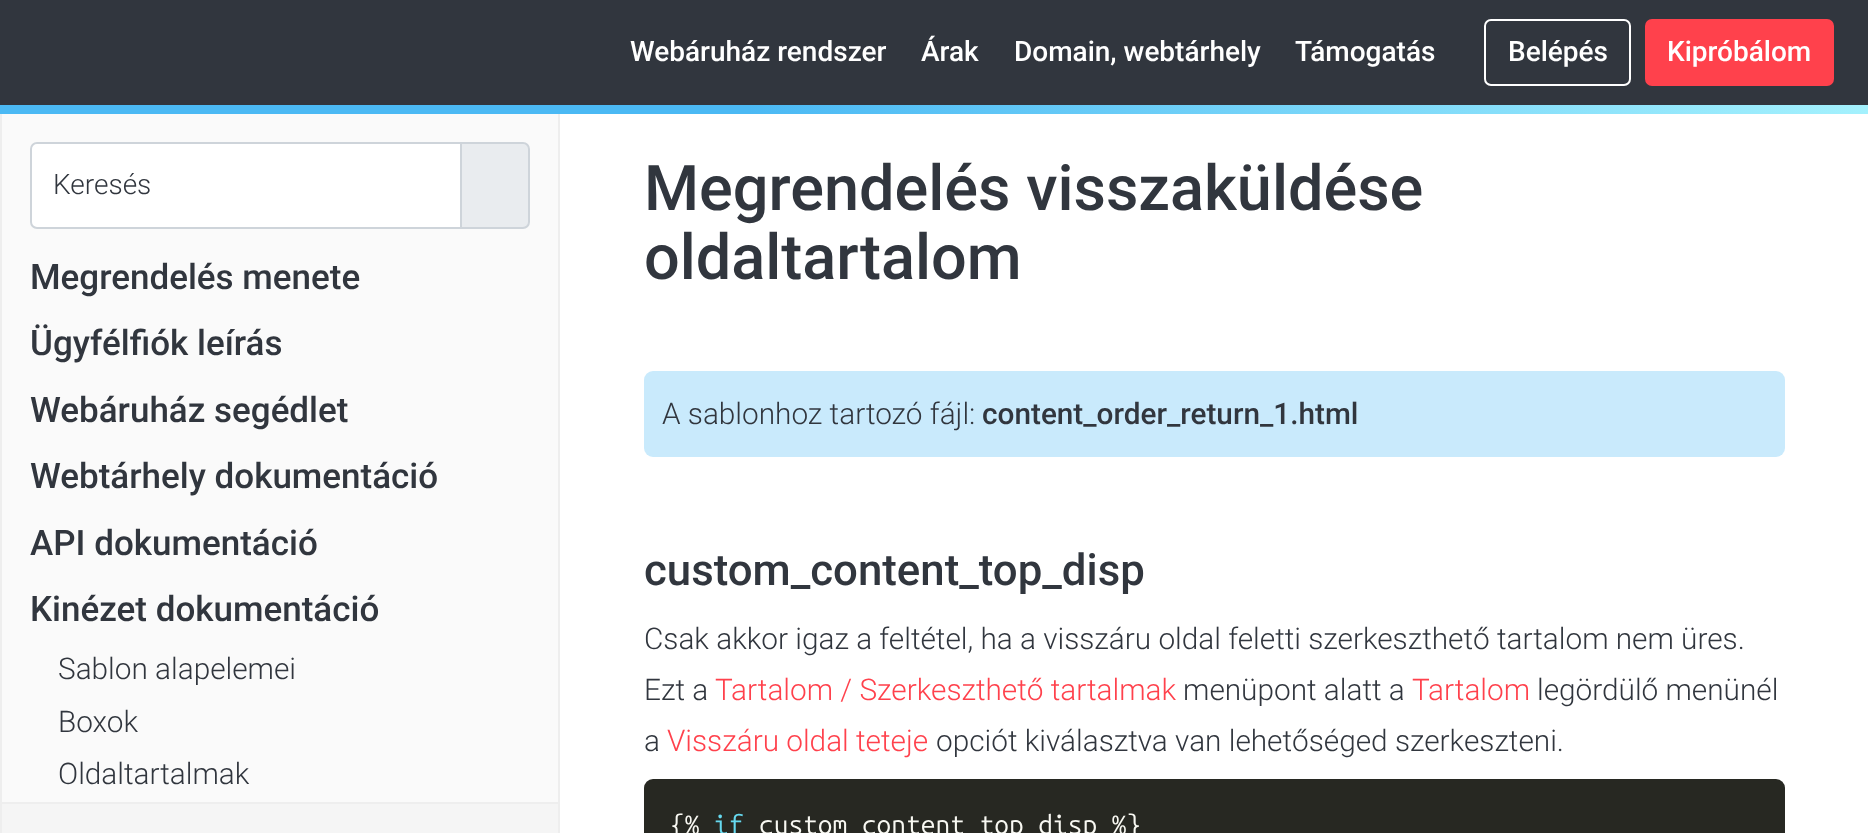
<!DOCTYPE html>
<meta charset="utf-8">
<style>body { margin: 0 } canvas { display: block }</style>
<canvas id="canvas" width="1868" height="833"></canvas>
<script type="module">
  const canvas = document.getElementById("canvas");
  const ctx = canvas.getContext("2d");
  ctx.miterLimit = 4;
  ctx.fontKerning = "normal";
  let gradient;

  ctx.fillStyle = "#ffffff";
  ctx.fillRect(0, 0, 1868, 833);
  ctx.fillStyle = "#31363e";
  ctx.fillRect(0, 0, 1868, 105);
  ctx.font = "500 28px Roboto";
  ctx.fillStyle = "#ffffff";
  ctx.fillText("Webáruház rendszer", 630, 61);
  ctx.fillText("Árak", 921, 61);
  ctx.fillText("Domain, webtárhely", 1014, 61);
  ctx.fillText("Támogatás", 1295, 61);
  ctx.beginPath();
  ctx.roundRect(1485, 20, 145, 65, 6);
  ctx.strokeStyle = "#ffffff";
  ctx.lineWidth = 2;
  ctx.stroke();
  ctx.fillText("Belépés", 1508, 61);
  ctx.fillStyle = "#ff414c";
  ctx.beginPath();
  ctx.roundRect(1646, 20, 187, 65, 6);
  ctx.fill();
  ctx.strokeStyle = "#ff414c";
  ctx.stroke();
  ctx.fillStyle = "#ffffff";
  ctx.fillText("Kipróbálom", 1667, 61);
  gradient = ctx.createLinearGradient(0, 57, 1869, 57);
  gradient.addColorStop(0.4, "#4bb9f4");
  gradient.addColorStop(1, "#a4f1fd");
  ctx.fillStyle = gradient;
  ctx.fillRect(0, 105, 1868, 9);
  ctx.fillStyle = "#fafafa";
  ctx.fillRect(2, 114, 556, 688);
  ctx.fillStyle = "#eeeeee";
  ctx.fillRect(558, 114, 2, 719);
  ctx.fillRect(0, 114, 2, 719);
  ctx.fillStyle = "#e9ecef";
  ctx.beginPath();
  ctx.roundRect(461, 143, 68, 85, [0, 6, 6, 0]);
  ctx.fill();
  ctx.strokeStyle = "#ced4da";
  ctx.stroke();
  ctx.fillStyle = "#ffffff";
  ctx.beginPath();
  ctx.roundRect(31, 143, 430, 85, [6, 0, 0, 6]);
  ctx.fill();
  ctx.stroke();
  ctx.font = "300 28px Roboto";
  ctx.fillStyle = "#31363e";
  ctx.fillText("Keresés", 53, 194);
  ctx.font = "500 35px Roboto";
  ctx.fillText("Megrendelés menete", 30, 289);
  ctx.fillText("Ügyfélfiók leírás", 30, 355);
  ctx.fillText("Webáruház segédlet", 30, 422);
  ctx.fillText("Webtárhely dokumentáció", 30, 488);
  ctx.fillText("API dokumentáció", 30, 555);
  ctx.fillText("Kinézet dokumentáció", 30, 621);
  ctx.font = "300 29.75px Roboto";
  ctx.fillText("Sablon alapelemei", 58, 679);
  ctx.fillText("Boxok", 58, 732);
  ctx.fillText("Oldaltartalmak", 58, 784);
  ctx.fillStyle = "#f5f5f5";
  ctx.fillRect(2, 804, 556, 29);
  ctx.fillStyle = "#eeeeee";
  ctx.fillRect(2, 802, 556, 2);
  ctx.font = "500 63px Roboto";
  ctx.fillStyle = "#31363e";
  ctx.fillText("Megrendelés visszaküldése", 644, 210);
  ctx.fillText("oldaltartalom", 644, 279);
  ctx.fillStyle = "#c9eafc";
  ctx.beginPath();
  ctx.roundRect(644, 371, 1141, 86, 9);
  ctx.fill();
  ctx.font = "300 29.75px Roboto";
  ctx.fillStyle = "#31363e";
  ctx.fillText("A sablonhoz tartozó fájl:", 662, 424);
  ctx.font = "500 29.75px Roboto";
  ctx.fillText("content_order_return_1.html", 982, 424);
  ctx.font = "500 43.75px Roboto";
  ctx.fillText("custom_content_top_disp", 644, 585);
  ctx.font = "300 29.75px Roboto";
  ctx.fillText("Csak akkor igaz a feltétel, ha a visszáru oldal feletti szerkeszthető tartalom nem üres.", 644, 649);
  ctx.fillText("Ezt a", 644, 700);
  ctx.fillStyle = "#ff414c";
  ctx.fillText("Tartalom / Szerkeszthető tartalmak", 715, 700);
  ctx.fillStyle = "#31363e";
  ctx.fillText("menüpont alatt a", 1183, 700);
  ctx.fillStyle = "#ff414c";
  ctx.fillText("Tartalom", 1412, 700);
  ctx.fillStyle = "#31363e";
  ctx.fillText("legördülő menünél", 1537, 700);
  ctx.fillText("a", 644, 751);
  ctx.fillStyle = "#ff414c";
  ctx.fillText("Visszáru oldal teteje", 667, 751);
  ctx.fillStyle = "#31363e";
  ctx.fillText("opciót kiválasztva van lehetőséged szerkeszteni.", 936, 751);
  ctx.fillStyle = "#272822";
  ctx.beginPath();
  ctx.roundRect(644, 779, 1141, 54, [9, 9, 0, 0]);
  ctx.fill();
  ctx.font = "26.25px Ubuntu Mono";
  ctx.fillStyle = "#f8f8f2";
  ctx.fillText("{%", 670, 834);
  ctx.fillStyle = "#66d9ef";
  ctx.fillText("if", 714, 834);
  ctx.fillStyle = "#f8f8f2";
  ctx.fillText("custom_content_top_disp %}", 759, 834);
</script>
